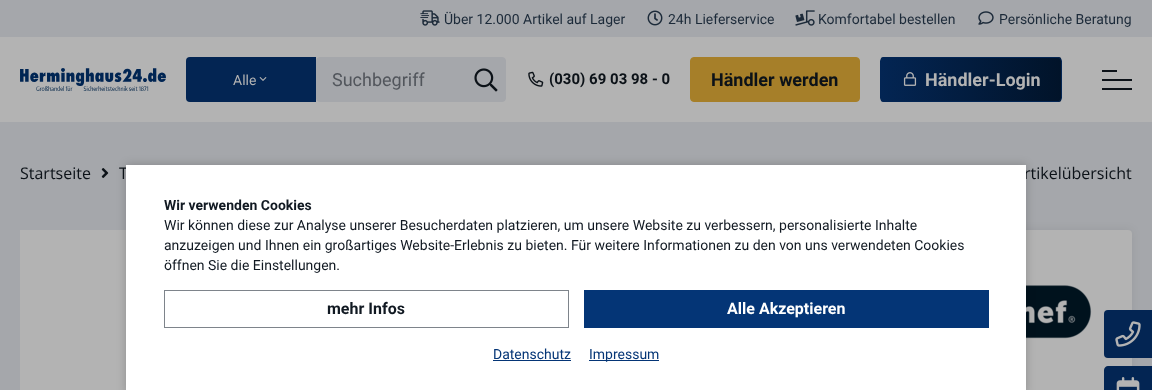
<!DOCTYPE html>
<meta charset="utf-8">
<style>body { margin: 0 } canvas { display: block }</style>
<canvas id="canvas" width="1152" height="390"></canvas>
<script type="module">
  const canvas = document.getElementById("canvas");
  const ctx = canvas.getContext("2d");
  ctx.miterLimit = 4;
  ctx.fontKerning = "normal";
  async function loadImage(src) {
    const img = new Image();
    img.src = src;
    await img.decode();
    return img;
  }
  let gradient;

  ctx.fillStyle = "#b3b3b3";
  ctx.fillRect(0, 0, 1152, 390);
  ctx.fillStyle = "#a5a7ab";
  ctx.fillRect(0, 0, 1152, 37);
  ctx.drawImage(await loadImage("img1.png"), 420, 10, 20, 16);
  ctx.font = "14px Roboto";
  ctx.fillStyle = "#1c2a39";
  ctx.fillText("Über 12.000 Artikel auf Lager", 444, 24);
  ctx.drawImage(await loadImage("img2.png"), 647, 10, 16, 16);
  ctx.fillText("24h Lieferservice", 668, 24);
  ctx.drawImage(await loadImage("img3.png"), 795, 10, 20, 16);
  ctx.fillText("Komfortabel bestellen", 818, 24);
  ctx.drawImage(await loadImage("img4.png"), 978, 11, 16, 14);
  ctx.fillText("Persönliche Beratung", 999, 24);
  ctx.drawImage(await loadImage("img5.png"), 20, 68, 146, 23);
  ctx.fillStyle = "#032553";
  ctx.beginPath();
  ctx.roundRect(186, 57, 130, 45, [4, 0, 0, 4]);
  ctx.fill();
  ctx.fillStyle = "#b3b3b3";
  ctx.fillText("Alle", 233, 85);
  ctx.drawImage(await loadImage("img6.png"), 259, 77, 8, 4);
  ctx.fillStyle = "#a5a7ab";
  ctx.beginPath();
  ctx.roundRect(316.5, 57.5, 189, 44, 3.5);
  ctx.fill();
  ctx.strokeStyle = "#a5a7ab";
  ctx.stroke();
  ctx.font = "18px Roboto";
  ctx.fillStyle = "#52565c";
  ctx.fillText("Suchbegriff", 332, 86);
  ctx.drawImage(await loadImage("img7.png"), 474, 68, 24, 24);
  ctx.drawImage(await loadImage("img8.png"), 528, 71, 16, 16);
  ctx.font = "bold 15px Roboto";
  ctx.fillStyle = "#0c1218";
  ctx.fillText("(030) 69 03 98 - 0", 549, 84);
  ctx.fillStyle = "#a67f29";
  ctx.beginPath();
  ctx.roundRect(690.5, 57.5, 169, 44, 3.5);
  ctx.fill();
  ctx.strokeStyle = "#a67f29";
  ctx.stroke();
  ctx.font = "bold 18px Roboto";
  ctx.fillStyle = "#0c1218";
  ctx.fillText("Händler werden", 711, 86);
  ctx.save();
  ctx.beginPath();
  ctx.roundRect(880, 57, 182, 45, 4);
  ctx.clip();
  gradient = ctx.createLinearGradient(881, 80, 1061, 80);
  gradient.addColorStop(0, "#032553");
  gradient.addColorStop(1, "#011329");
  ctx.fillStyle = gradient;
  ctx.fillRect(881, 57, 180, 45);
  ctx.restore();
  ctx.beginPath();
  ctx.roundRect(880.5, 57.5, 181, 44, 3.5);
  ctx.strokeStyle = "#032553";
  ctx.stroke();
  ctx.drawImage(await loadImage("img9.png"), 903, 72, 14, 14);
  ctx.fillStyle = "#b3b3b3";
  ctx.fillText("Händler-Login", 925, 86);
  ctx.fillStyle = "#0c1218";
  ctx.fillRect(1102, 70, 15, 2);
  ctx.fillRect(1102, 79, 30, 2);
  ctx.fillRect(1102, 88, 30, 2);
  ctx.fillStyle = "#a5a7ab";
  ctx.fillRect(0, 122, 1152, 268);
  ctx.font = "16px Open Sans";
  ctx.fillStyle = "#0c1218";
  ctx.fillText("Startseite", 20, 179);
  ctx.drawImage(await loadImage("img10.png"), 101, 168, 8, 10);
  ctx.fillText("T", 119, 179);
  ctx.fillText("rtikelübersicht", 1024, 179);
  ctx.fillStyle = "#b3b3b3";
  ctx.fillRect(20, 230, 106, 160);
  ctx.fillStyle = "rgba(0, 0, 0, 0.07)";
  ctx.filter = "blur(5px)";
  ctx.beginPath();
  ctx.roundRect(360, 230, 772, 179, 4);
  ctx.fill();
  ctx.filter = "none";
  ctx.fillStyle = "#b3b3b3";
  ctx.beginPath();
  ctx.roundRect(360, 230, 772, 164, 4);
  ctx.fill();
  ctx.drawImage(await loadImage("img11.png"), 1026, 285, 66, 54);
  ctx.fillStyle = "#032553";
  ctx.beginPath();
  ctx.roundRect(1104, 310, 48, 48, [4, 0, 0, 4]);
  ctx.fill();
  ctx.drawImage(await loadImage("img12.png"), 1115, 321, 26, 26);
  ctx.beginPath();
  ctx.moveTo(1108, 366);
  ctx.lineTo(1152, 366);
  ctx.lineTo(1152, 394);
  ctx.lineTo(1108, 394);
  ctx.bezierCurveTo(1106, 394, 1104, 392, 1104, 390);
  ctx.lineTo(1104, 370);
  ctx.bezierCurveTo(1104, 368, 1106, 366, 1108, 366);
  ctx.closePath();
  ctx.fill();
  ctx.drawImage(await loadImage("img13.png"), 1116, 377, 24, 13);
  ctx.fillStyle = "rgba(0, 0, 0, 0.2)";
  ctx.filter = "blur(5px)";
  ctx.beginPath();
  ctx.rect(126, 165, 900, 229);
  ctx.fill();
  ctx.filter = "none";
  ctx.fillStyle = "#ffffff";
  ctx.fillRect(126, 165, 900, 225);
  ctx.font = "bold 14px Roboto";
  ctx.fillStyle = "#111922";
  ctx.fillText("Wir verwenden Cookies", 164, 210);
  ctx.font = "14px Roboto";
  ctx.fillText("Wir können diese zur Analyse unserer Besucherdaten platzieren, um unsere Website zu verbessern, personalisierte Inhalte", 164, 230);
  ctx.fillText("anzuzeigen und Ihnen ein großartiges Website-Erlebnis zu bieten. Für weitere Informationen zu den von uns verwendeten Cookies", 164, 250);
  ctx.fillText("öffnen Sie die Einstellungen.", 164, 270);
  ctx.strokeStyle = "#7e848b";
  ctx.strokeRect(164.5, 290.5, 404, 37);
  ctx.font = "bold 16px Roboto";
  ctx.fillText("mehr Infos", 327, 314);
  ctx.fillStyle = "#043576";
  ctx.fillRect(584, 290, 405, 38);
  ctx.fillStyle = "#ffffff";
  ctx.fillText("Alle Akzeptieren", 727, 314);
  ctx.font = "14px Roboto";
  ctx.fillStyle = "#043576";
  ctx.fillText("Datenschutz", 493, 359);
  ctx.fillRect(493, 360, 78, 1);
  ctx.fillRect(589, 360, 70, 1);
  ctx.fillText("Impressum", 589, 359);
</script>
